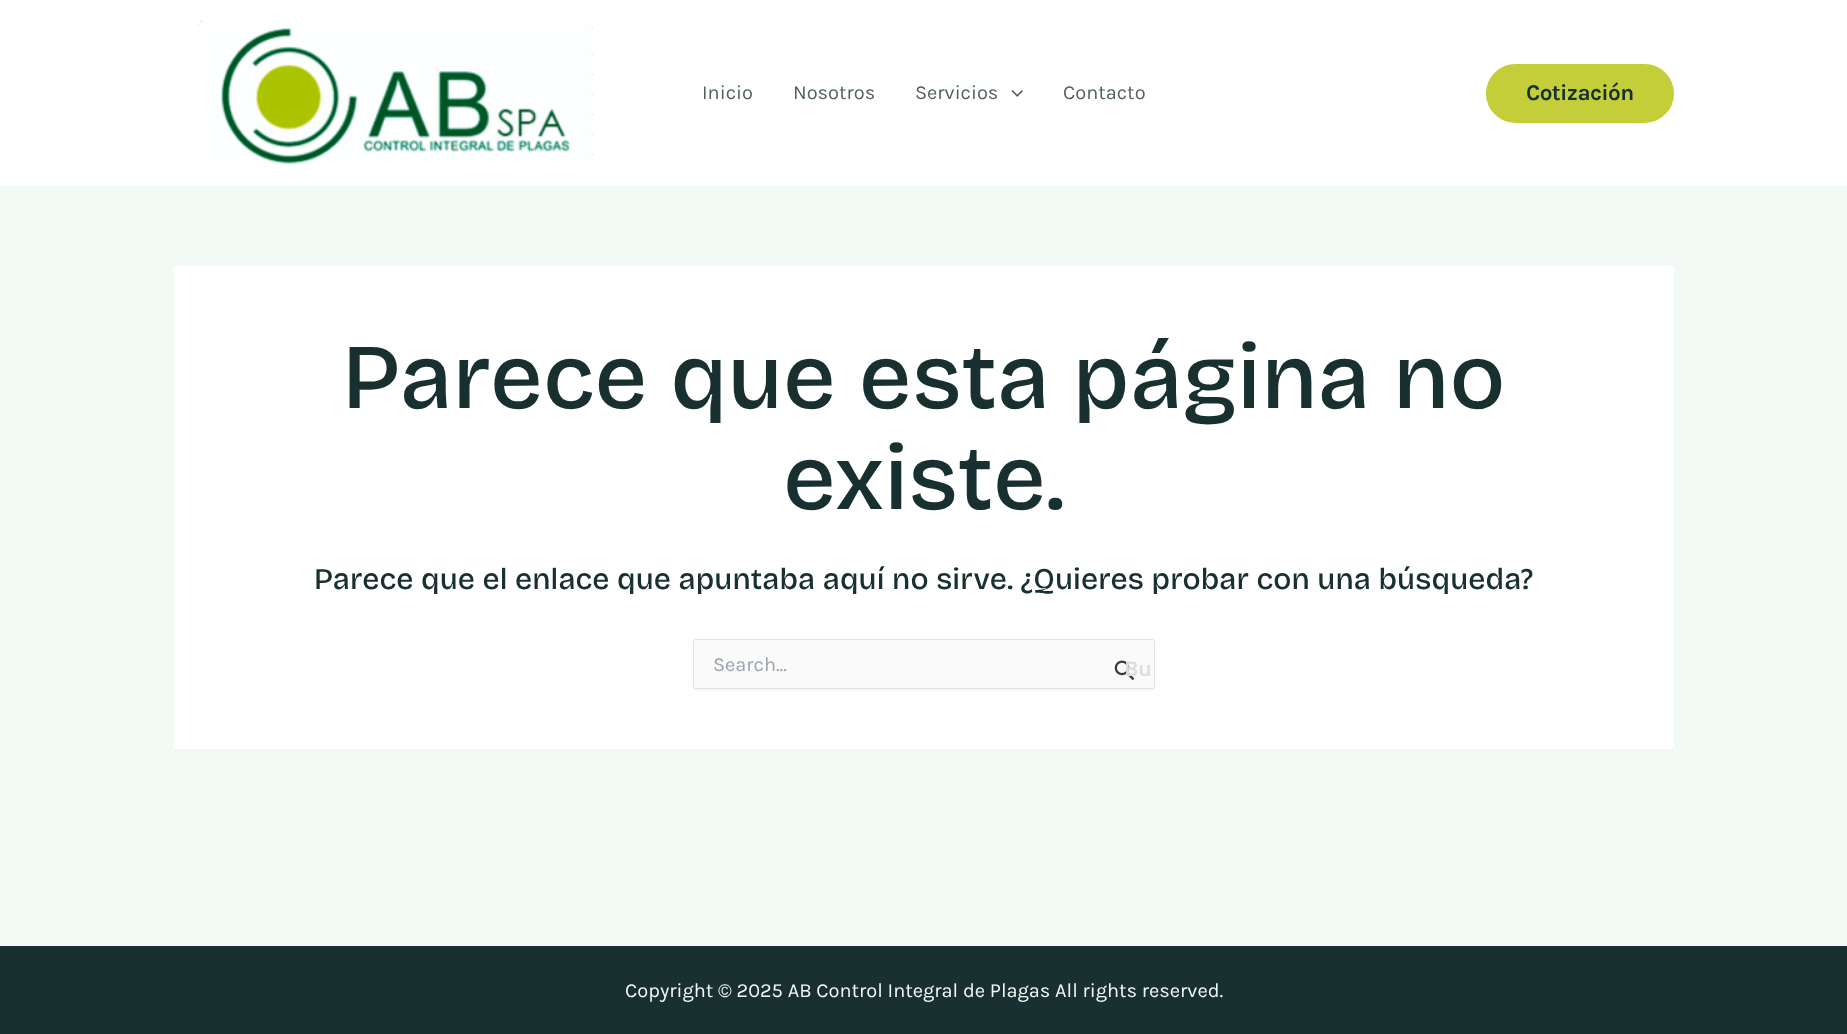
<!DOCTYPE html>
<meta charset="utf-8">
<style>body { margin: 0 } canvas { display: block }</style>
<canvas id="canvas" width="1847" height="1034"></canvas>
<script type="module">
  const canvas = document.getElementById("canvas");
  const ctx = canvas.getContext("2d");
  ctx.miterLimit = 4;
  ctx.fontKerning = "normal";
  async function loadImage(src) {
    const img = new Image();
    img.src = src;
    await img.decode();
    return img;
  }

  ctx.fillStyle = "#f3faf6";
  ctx.fillRect(0, 0, 1847, 1034);
  ctx.fillStyle = "#ffffff";
  ctx.fillRect(0, 0, 1847, 186);
  ctx.drawImage(await loadImage("img1.png"), 197, 20, 397, 145);
  ctx.font = "20px Karla";
  ctx.fillStyle = "#526354";
  ctx.fillText("Inicio", 702, 99);
  ctx.fillText("Nosotros", 793, 99);
  ctx.fillText("Servicios", 915, 99);
  ctx.drawImage(await loadImage("img2.png"), 1011, 90, 12, 7);
  ctx.fillText("Contacto", 1063, 99);
  ctx.fillStyle = "#c3ce38";
  ctx.beginPath();
  ctx.roundRect(1487.5, 65.5, 185, 56, 28);
  ctx.fill();
  ctx.strokeStyle = "#c3ce38";
  ctx.lineWidth = 3;
  ctx.stroke();
  ctx.letterSpacing = "-0.6px";
  ctx.font = "bold 22.5px Karla";
  ctx.fillStyle = "#183030";
  ctx.fillText("Cotización", 1526, 100);
  ctx.fillStyle = "#ffffff";
  ctx.fillRect(174, 266, 1500, 483);
  ctx.letterSpacing = "0.12px";
  ctx.font = "500 92.5px Bricolage Grotesque";
  ctx.fillStyle = "#183030";
  ctx.fillText("Parece que esta página no", 342, 408);
  ctx.fillText("existe.", 783, 509);
  ctx.font = "500 30px Bricolage Grotesque";
  ctx.fillText("Parece que el enlace que apuntaba aquí no sirve. ¿Quieres probar con una búsqueda?", 314, 589);
  ctx.fillStyle = "rgba(0, 0, 0, 0.05)";
  ctx.filter = "blur(1px)";
  ctx.beginPath();
  ctx.roundRect(693, 640, 462, 50, 2.5);
  ctx.fill();
  ctx.filter = "none";
  ctx.fillStyle = "#fafafa";
  ctx.beginPath();
  ctx.roundRect(693.5, 639.5, 461, 49, 2);
  ctx.fill();
  ctx.strokeStyle = "#dfe2e2";
  ctx.lineWidth = 1;
  ctx.stroke();
  ctx.letterSpacing = "0px";
  ctx.font = "20px Karla";
  ctx.fillStyle = "#9ca3af";
  ctx.fillText("Search...", 713, 671);
  ctx.drawImage(await loadImage("img3.png"), 1114, 660, 20, 21);
  ctx.letterSpacing = "-0.6px";
  ctx.font = "bold 22.5px Karla";
  ctx.fillStyle = "#dddede";
  ctx.fillText("Bu", 1124, 676);
  ctx.fillStyle = "#183030";
  ctx.fillRect(0, 946, 1847, 88);
  ctx.letterSpacing = "0px";
  ctx.font = "20px Karla";
  ctx.fillStyle = "#f3faf6";
  ctx.fillText("Copyright © 2025 AB Control Integral de Plagas All rights reserved.", 625, 997);
</script>
